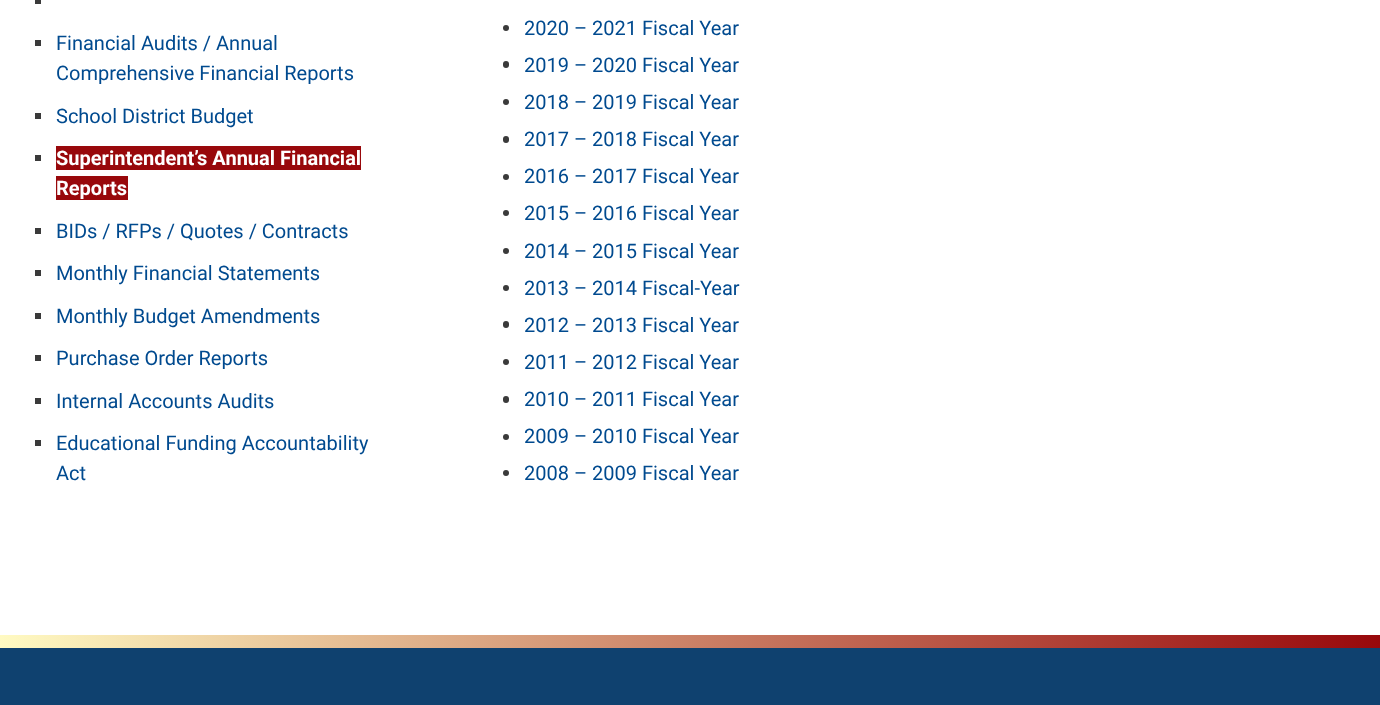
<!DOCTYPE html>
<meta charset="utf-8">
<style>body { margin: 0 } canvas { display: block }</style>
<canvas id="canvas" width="1380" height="705"></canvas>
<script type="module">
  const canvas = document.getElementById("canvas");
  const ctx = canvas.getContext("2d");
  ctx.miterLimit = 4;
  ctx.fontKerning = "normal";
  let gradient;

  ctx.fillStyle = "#ffffff";
  ctx.fillRect(0, 0, 1380, 705);
  ctx.fillStyle = "#3a3a3a";
  ctx.fillRect(35, 0, 6, 4);
  ctx.fillRect(35, 40, 6, 6);
  ctx.font = "20px Roboto";
  ctx.fillStyle = "#004a8f";
  ctx.fillText("Financial Audits / Annual", 56, 50);
  ctx.fillText("Comprehensive Financial Reports", 56, 80);
  ctx.fillStyle = "#3a3a3a";
  ctx.fillRect(35, 113, 6, 6);
  ctx.fillStyle = "#004a8f";
  ctx.fillText("School District Budget", 56, 123);
  ctx.fillStyle = "#3a3a3a";
  ctx.fillRect(35, 155, 6, 6);
  ctx.fillStyle = "#98080b";
  ctx.fillRect(56, 146, 305, 24);
  ctx.font = "bold 20px Roboto";
  ctx.fillStyle = "#ffffff";
  ctx.fillText("Superintendent’s Annual Financial", 56, 165);
  ctx.fillStyle = "#98080b";
  ctx.fillRect(56, 176, 72, 24);
  ctx.fillStyle = "#ffffff";
  ctx.fillText("Reports", 56, 195);
  ctx.fillStyle = "#3a3a3a";
  ctx.fillRect(35, 228, 6, 6);
  ctx.font = "20px Roboto";
  ctx.fillStyle = "#004a8f";
  ctx.fillText("BIDs / RFPs / Quotes / Contracts", 56, 238);
  ctx.fillStyle = "#3a3a3a";
  ctx.fillRect(35, 270, 6, 6);
  ctx.fillStyle = "#004a8f";
  ctx.fillText("Monthly Financial Statements", 56, 280);
  ctx.fillStyle = "#3a3a3a";
  ctx.fillRect(35, 313, 6, 6);
  ctx.fillStyle = "#004a8f";
  ctx.fillText("Monthly Budget Amendments", 56, 323);
  ctx.fillStyle = "#3a3a3a";
  ctx.fillRect(35, 355, 6, 6);
  ctx.fillStyle = "#004a8f";
  ctx.fillText("Purchase Order Reports", 56, 365);
  ctx.fillStyle = "#3a3a3a";
  ctx.fillRect(35, 398, 6, 6);
  ctx.fillStyle = "#004a8f";
  ctx.fillText("Internal Accounts Audits", 56, 408);
  ctx.fillStyle = "#3a3a3a";
  ctx.fillRect(35, 440, 6, 6);
  ctx.fillStyle = "#004a8f";
  ctx.fillText("Educational Funding Accountability", 56, 450);
  ctx.fillText("Act", 56, 480);
  ctx.fillStyle = "#3a3a3a";
  ctx.beginPath();
  ctx.arc(506, 28, 3, 0, Math.PI * 2);
  ctx.fill();
  ctx.fillStyle = "#004a8f";
  ctx.fillText("2020 – 2021 Fiscal Year", 524, 35);
  ctx.fillStyle = "#3a3a3a";
  ctx.beginPath();
  ctx.roundRect(503, 61, 6, 7, 3);
  ctx.fill();
  ctx.fillStyle = "#004a8f";
  ctx.fillText("2019 – 2020 Fiscal Year", 524, 72);
  ctx.fillStyle = "#3a3a3a";
  ctx.beginPath();
  ctx.arc(506, 102, 3, 0, Math.PI * 2);
  ctx.fill();
  ctx.fillStyle = "#004a8f";
  ctx.fillText("2018 – 2019 Fiscal Year", 524, 109);
  ctx.fillStyle = "#3a3a3a";
  ctx.beginPath();
  ctx.roundRect(503, 136, 6, 7, 3);
  ctx.fill();
  ctx.fillStyle = "#004a8f";
  ctx.fillText("2017 – 2018 Fiscal Year", 524, 146);
  ctx.fillStyle = "#3a3a3a";
  ctx.beginPath();
  ctx.arc(506, 177, 3, 0, Math.PI * 2);
  ctx.fill();
  ctx.fillStyle = "#004a8f";
  ctx.fillText("2016 – 2017 Fiscal Year", 524, 183);
  ctx.fillStyle = "#3a3a3a";
  ctx.beginPath();
  ctx.arc(506, 213, 3, 0, Math.PI * 2);
  ctx.fill();
  ctx.fillStyle = "#004a8f";
  ctx.fillText("2015 – 2016 Fiscal Year", 524, 220);
  ctx.fillStyle = "#3a3a3a";
  ctx.beginPath();
  ctx.arc(506, 251, 3, 0, Math.PI * 2);
  ctx.fill();
  ctx.fillStyle = "#004a8f";
  ctx.fillText("2014 – 2015 Fiscal Year", 524, 258);
  ctx.fillStyle = "#3a3a3a";
  ctx.beginPath();
  ctx.arc(506, 288, 3, 0, Math.PI * 2);
  ctx.fill();
  ctx.fillStyle = "#004a8f";
  ctx.fillText("2013 – 2014 Fiscal-Year", 524, 295);
  ctx.fillStyle = "#3a3a3a";
  ctx.beginPath();
  ctx.roundRect(503, 321, 6, 7, 3);
  ctx.fill();
  ctx.fillStyle = "#004a8f";
  ctx.fillText("2012 – 2013 Fiscal Year", 524, 332);
  ctx.fillStyle = "#3a3a3a";
  ctx.beginPath();
  ctx.arc(506, 362, 3, 0, Math.PI * 2);
  ctx.fill();
  ctx.fillStyle = "#004a8f";
  ctx.fillText("2011 – 2012 Fiscal Year", 524, 369);
  ctx.fillStyle = "#3a3a3a";
  ctx.beginPath();
  ctx.roundRect(503, 396, 6, 7, 3);
  ctx.fill();
  ctx.fillStyle = "#004a8f";
  ctx.fillText("2010 – 2011 Fiscal Year", 524, 406);
  ctx.fillStyle = "#3a3a3a";
  ctx.beginPath();
  ctx.arc(506, 437, 3, 0, Math.PI * 2);
  ctx.fill();
  ctx.fillStyle = "#004a8f";
  ctx.fillText("2009 – 2010 Fiscal Year", 524, 443);
  ctx.fillStyle = "#3a3a3a";
  ctx.beginPath();
  ctx.arc(506, 473, 3, 0, Math.PI * 2);
  ctx.fill();
  ctx.fillStyle = "#004a8f";
  ctx.fillText("2008 – 2009 Fiscal Year", 524, 480);
  gradient = ctx.createLinearGradient(0, 641, 1380, 641);
  gradient.addColorStop(0, "#fffac2");
  gradient.addColorStop(1, "#98080b");
  ctx.fillStyle = gradient;
  ctx.fillRect(0, 635, 1380, 13);
  ctx.fillStyle = "#0f416f";
  ctx.fillRect(0, 648, 1380, 57);
</script>
